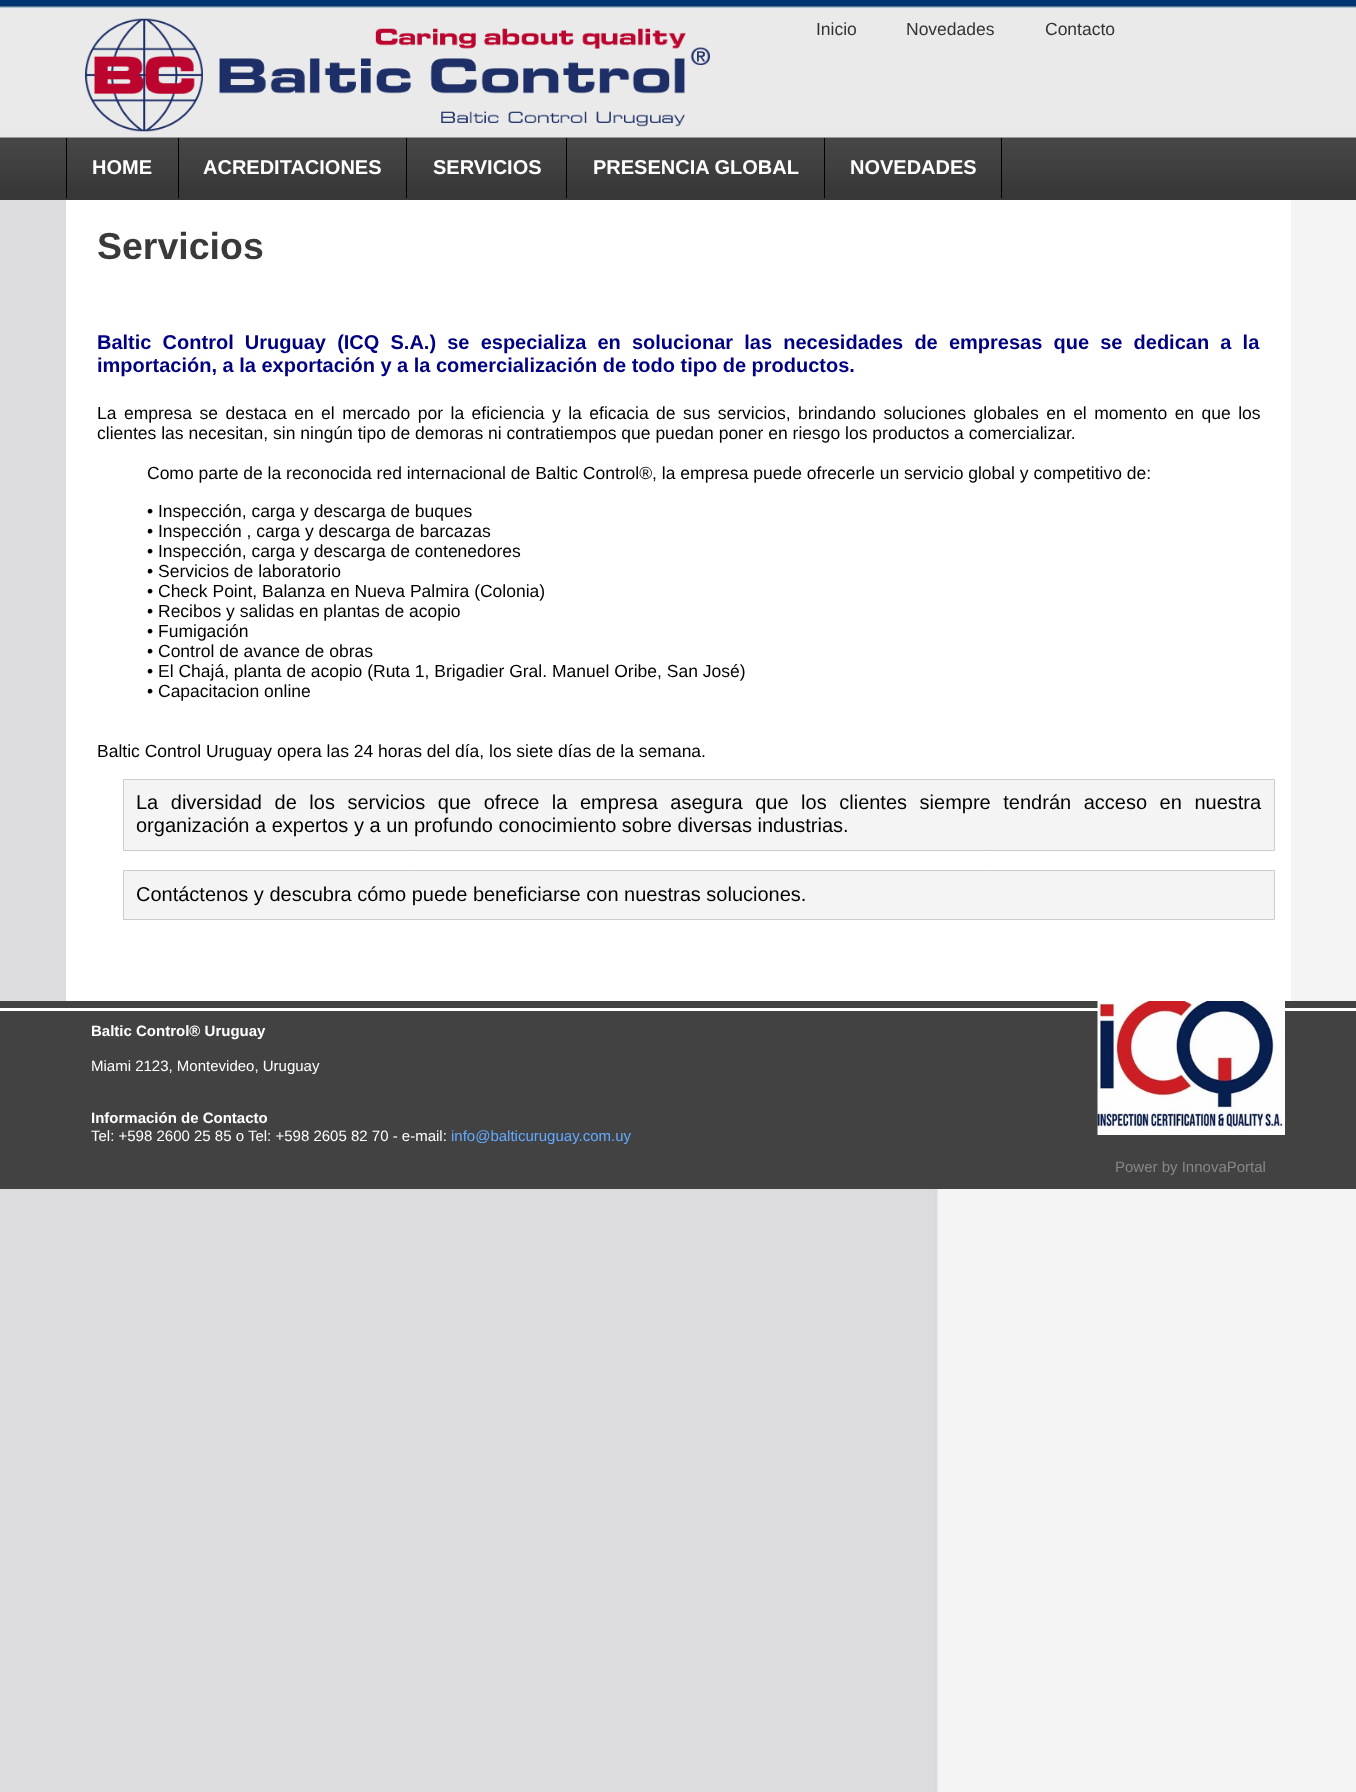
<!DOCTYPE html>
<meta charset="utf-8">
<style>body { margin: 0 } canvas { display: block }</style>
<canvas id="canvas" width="1356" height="1792"></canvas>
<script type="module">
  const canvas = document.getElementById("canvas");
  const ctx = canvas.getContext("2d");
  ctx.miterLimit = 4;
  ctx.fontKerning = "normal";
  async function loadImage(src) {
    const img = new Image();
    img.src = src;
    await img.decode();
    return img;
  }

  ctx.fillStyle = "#ffffff";
  ctx.fillRect(0, 0, 1356, 1792);
  ctx.drawImage(await loadImage("img1.png"), 0, 200, 1356, 1592);
  ctx.drawImage(await loadImage("img2.png"), 0, 0, 1356, 200);
  ctx.drawImage(await loadImage("img3.png"), 85, 18, 625, 114);
  ctx.font = "17.5px Liberation Sans";
  ctx.fillStyle = "#333333";
  ctx.fillText("Inicio", 816, 35);
  ctx.fillText("Novedades", 906, 35);
  ctx.fillText("Contacto", 1045, 35);
  ctx.fillStyle = "#000000";
  ctx.fillRect(66, 138, 1, 60);
  ctx.font = "bold 20px Liberation Sans";
  ctx.fillStyle = "#ffffff";
  ctx.fillText("HOME", 92, 174);
  ctx.fillStyle = "#000000";
  ctx.fillRect(178, 138, 1, 60);
  ctx.fillStyle = "#ffffff";
  ctx.fillText("ACREDITACIONES", 203, 174);
  ctx.fillStyle = "#000000";
  ctx.fillRect(406, 138, 1, 60);
  ctx.fillStyle = "#ffffff";
  ctx.fillText("SERVICIOS", 433, 174);
  ctx.fillStyle = "#000000";
  ctx.fillRect(566, 138, 1, 60);
  ctx.fillStyle = "#ffffff";
  ctx.fillText("PRESENCIA GLOBAL", 593, 174);
  ctx.fillStyle = "#000000";
  ctx.fillRect(1001, 138, 1, 60);
  ctx.fillRect(824, 138, 1, 60);
  ctx.fillStyle = "#ffffff";
  ctx.fillText("NOVEDADES", 850, 174);
  ctx.fillRect(66, 200, 1225, 801);
  ctx.font = "bold 37.5px Liberation Sans";
  ctx.fillStyle = "#3a3a3a";
  ctx.fillText("Servicios", 97, 259);
  ctx.wordSpacing = "5.6px";
  ctx.font = "bold 20px Liberation Sans";
  ctx.fillStyle = "#000080";
  ctx.fillText("Baltic Control Uruguay (ICQ S.A.) se especializa en solucionar las necesidades de empresas que se dedican a la", 97, 349);
  ctx.wordSpacing = "0px";
  ctx.fillText("importación, a la exportación y a la comercialización de todo tipo de productos.", 97, 372);
  ctx.wordSpacing = "2.6px";
  ctx.font = "17.5px Liberation Sans";
  ctx.fillStyle = "#000000";
  ctx.fillText("La empresa se destaca en el mercado por la eficiencia y la eficacia de sus servicios, brindando soluciones globales en el momento en que los", 97, 419);
  ctx.wordSpacing = "0px";
  ctx.fillText("clientes las necesitan, sin ningún tipo de demoras ni contratiempos que puedan poner en riesgo los productos a comercializar.", 97, 439);
  ctx.fillText("Como parte de la reconocida red internacional de Baltic Control®, la empresa puede ofrecerle un servicio global y competitivo de:", 147, 479);
  ctx.fillText("• Inspección, carga y descarga de buques", 147, 517);
  ctx.fillText("• Inspección , carga y descarga de barcazas", 147, 537);
  ctx.fillText("• Inspección, carga y descarga de contenedores", 147, 557);
  ctx.fillText("• Servicios de laboratorio", 147, 577);
  ctx.fillText("• Check Point, Balanza en Nueva Palmira (Colonia)", 147, 597);
  ctx.fillText("• Recibos y salidas en plantas de acopio", 147, 617);
  ctx.fillText("• Fumigación", 147, 637);
  ctx.fillText("• Control de avance de obras", 147, 657);
  ctx.fillText("• El Chajá, planta de acopio (Ruta 1, Brigadier Gral. Manuel Oribe, San José)", 147, 677);
  ctx.fillText("• Capacitacion online", 147, 697);
  ctx.fillText("Baltic Control Uruguay opera las 24 horas del día, los siete días de la semana.", 97, 757);
  ctx.fillStyle = "#f4f4f4";
  ctx.beginPath();
  ctx.rect(123.5, 779.5, 1151, 71);
  ctx.fill();
  ctx.strokeStyle = "#cccccc";
  ctx.stroke();
  ctx.wordSpacing = "7px";
  ctx.font = "20px Liberation Sans";
  ctx.fillStyle = "#000000";
  ctx.fillText("La diversidad de los servicios que ofrece la empresa asegura que los clientes siempre tendrán acceso en nuestra", 136, 809);
  ctx.wordSpacing = "0px";
  ctx.fillText("organización a expertos y a un profundo conocimiento sobre diversas industrias.", 136, 832);
  ctx.fillStyle = "#f4f4f4";
  ctx.beginPath();
  ctx.rect(123.5, 870.5, 1151, 49);
  ctx.fill();
  ctx.stroke();
  ctx.fillStyle = "#000000";
  ctx.fillText("Contáctenos y descubra cómo puede beneficiarse con nuestras soluciones.", 136, 901);
  ctx.fillStyle = "#424242";
  ctx.fillRect(0, 1001, 1356, 188);
  ctx.fillStyle = "#ffffff";
  ctx.fillRect(0, 1008, 1356, 3);
  ctx.font = "bold 15px Liberation Sans";
  ctx.fillText("Baltic Control® Uruguay", 91, 1036);
  ctx.font = "15px Liberation Sans";
  ctx.fillText("Miami 2123, Montevideo, Uruguay", 91, 1071);
  ctx.font = "bold 15px Liberation Sans";
  ctx.fillText("Información de Contacto", 91, 1123);
  ctx.font = "15px Liberation Sans";
  ctx.fillText("Tel: +598 2600 25 85 o Tel: +598 2605 82 70 - e-mail:", 91, 1141);
  ctx.fillStyle = "#64aaff";
  ctx.fillText("info@balticuruguay.com.uy", 451, 1141);
  ctx.drawImage(await loadImage("img4.png"), 1097, 1001, 188, 134);
  ctx.fillStyle = "#878787";
  ctx.fillText("Power by InnovaPortal", 1115, 1172);
</script>
